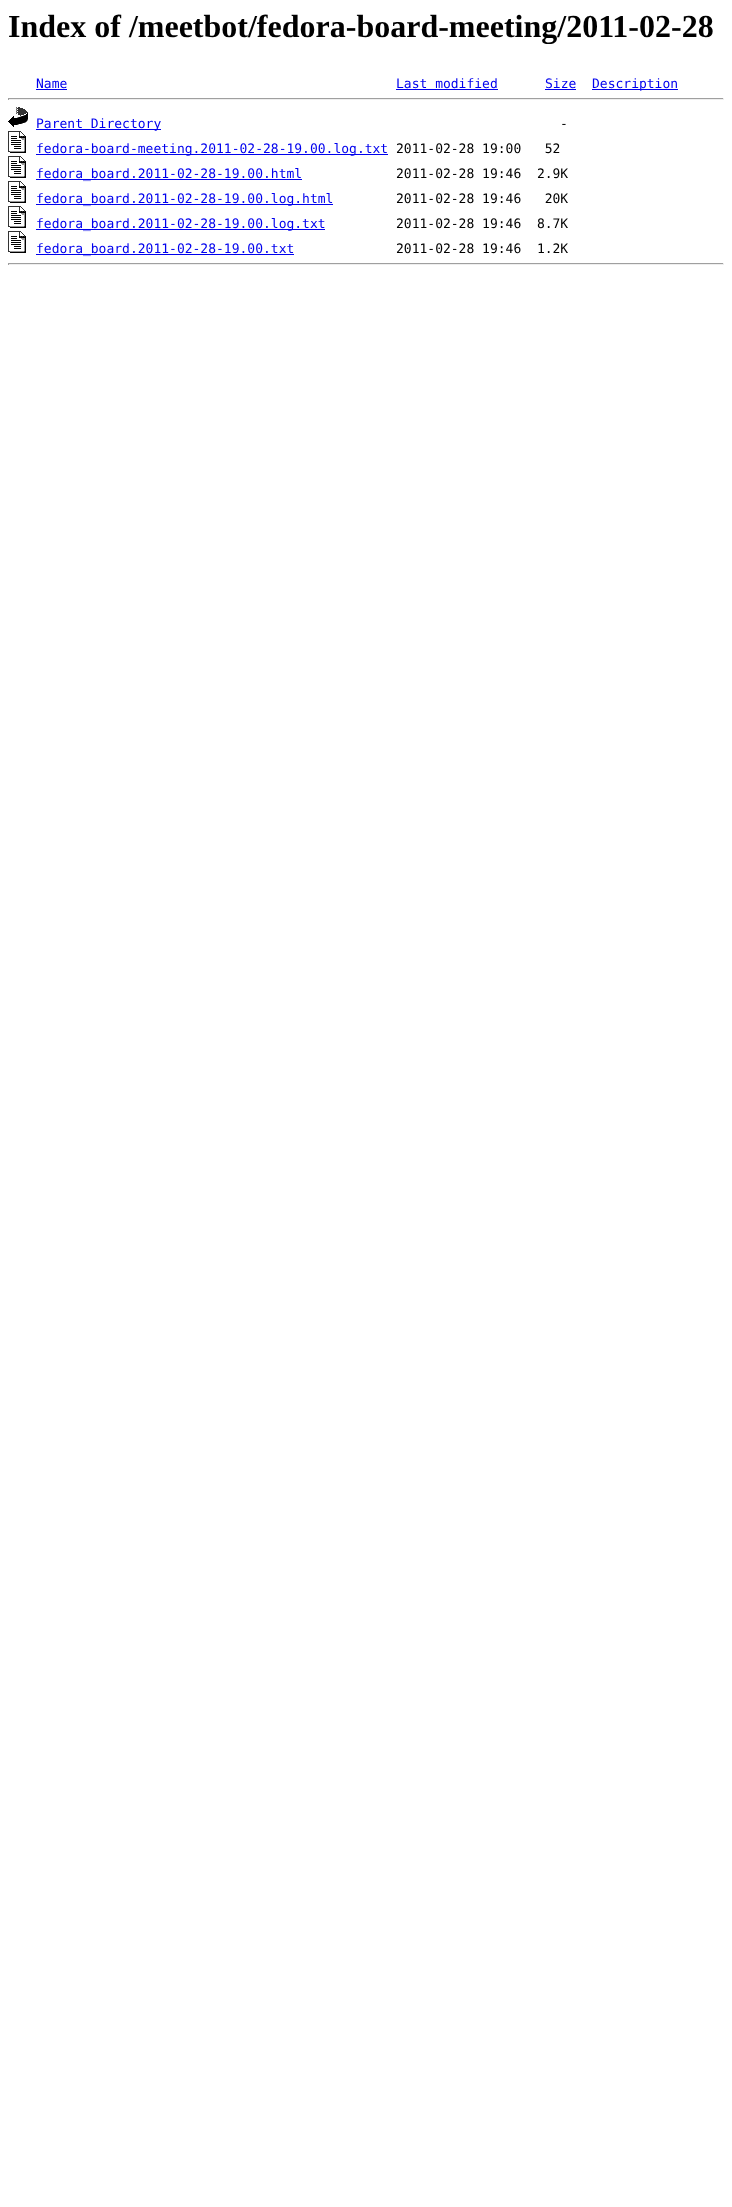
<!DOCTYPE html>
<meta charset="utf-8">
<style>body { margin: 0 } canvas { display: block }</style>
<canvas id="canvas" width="732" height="2207"></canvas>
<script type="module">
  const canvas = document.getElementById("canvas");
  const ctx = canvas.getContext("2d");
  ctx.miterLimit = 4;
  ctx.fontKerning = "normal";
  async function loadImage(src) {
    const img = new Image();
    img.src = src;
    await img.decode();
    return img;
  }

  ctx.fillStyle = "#ffffff";
  ctx.fillRect(0, 0, 732, 2207);
  ctx.font = "bold 32px Liberation Serif";
  ctx.fillStyle = "#000000";
  ctx.fillText("Index of /meetbot/fedora-board-meeting/2011-02-28", 8, 37);
  ctx.font = "13px DejaVu Sans Mono";
  ctx.fillStyle = "#0000ee";
  ctx.fillText("Name", 36, 88);
  ctx.fillRect(36, 89, 31, 1);
  ctx.fillText("Last modified", 396, 88);
  ctx.fillRect(396, 89, 102, 1);
  ctx.fillText("Size", 545, 88);
  ctx.fillRect(545, 89, 31, 1);
  ctx.fillRect(592, 89, 86, 1);
  ctx.fillText("Description", 592, 88);
  ctx.fillStyle = "#9f9f9f";
  ctx.fillRect(8, 98, 716, 1);
  ctx.fillStyle = "#eeeeee";
  ctx.fillRect(723, 98, 1, 2);
  ctx.fillRect(8, 99, 716, 1);
  ctx.fillStyle = "#9f9f9f";
  ctx.fillRect(8, 98, 1, 2);
  ctx.drawImage(await loadImage("img1.png"), 8, 107, 20, 20);
  ctx.fillStyle = "#0000ee";
  ctx.fillRect(36, 129, 125, 1);
  ctx.fillText("Parent Directory", 36, 128);
  ctx.fillStyle = "#000000";
  ctx.fillText("-", 560, 128);
  ctx.drawImage(await loadImage("img2.png"), 8, 131, 18, 22);
  ctx.fillStyle = "#0000ee";
  ctx.fillRect(36, 154, 352, 1);
  ctx.fillText("fedora-board-meeting.2011-02-28-19.00.log.txt", 36, 153);
  ctx.fillStyle = "#000000";
  ctx.fillText("2011-02-28 19:00   52", 396, 153);
  ctx.drawImage(await loadImage("img2.png"), 8, 156, 18, 22);
  ctx.fillStyle = "#0000ee";
  ctx.fillRect(36, 179, 266, 1);
  ctx.fillText("fedora_board.2011-02-28-19.00.html", 36, 178);
  ctx.fillStyle = "#000000";
  ctx.fillText("2011-02-28 19:46  2.9K", 396, 178);
  ctx.drawImage(await loadImage("img2.png"), 8, 181, 18, 22);
  ctx.fillStyle = "#0000ee";
  ctx.fillRect(36, 204, 297, 1);
  ctx.fillText("fedora_board.2011-02-28-19.00.log.html", 36, 203);
  ctx.fillStyle = "#000000";
  ctx.fillText("2011-02-28 19:46   20K", 396, 203);
  ctx.drawImage(await loadImage("img2.png"), 8, 206, 18, 22);
  ctx.fillStyle = "#0000ee";
  ctx.fillRect(36, 229, 289, 1);
  ctx.fillText("fedora_board.2011-02-28-19.00.log.txt", 36, 228);
  ctx.fillStyle = "#000000";
  ctx.fillText("2011-02-28 19:46  8.7K", 396, 228);
  ctx.drawImage(await loadImage("img2.png"), 8, 231, 18, 22);
  ctx.fillStyle = "#0000ee";
  ctx.fillRect(36, 254, 258, 1);
  ctx.fillText("fedora_board.2011-02-28-19.00.txt", 36, 253);
  ctx.fillStyle = "#000000";
  ctx.fillText("2011-02-28 19:46  1.2K", 396, 253);
  ctx.fillStyle = "#9f9f9f";
  ctx.fillRect(8, 263, 716, 1);
  ctx.fillStyle = "#eeeeee";
  ctx.fillRect(723, 263, 1, 2);
  ctx.fillRect(8, 264, 716, 1);
  ctx.fillStyle = "#9f9f9f";
  ctx.fillRect(8, 263, 1, 2);
</script>
